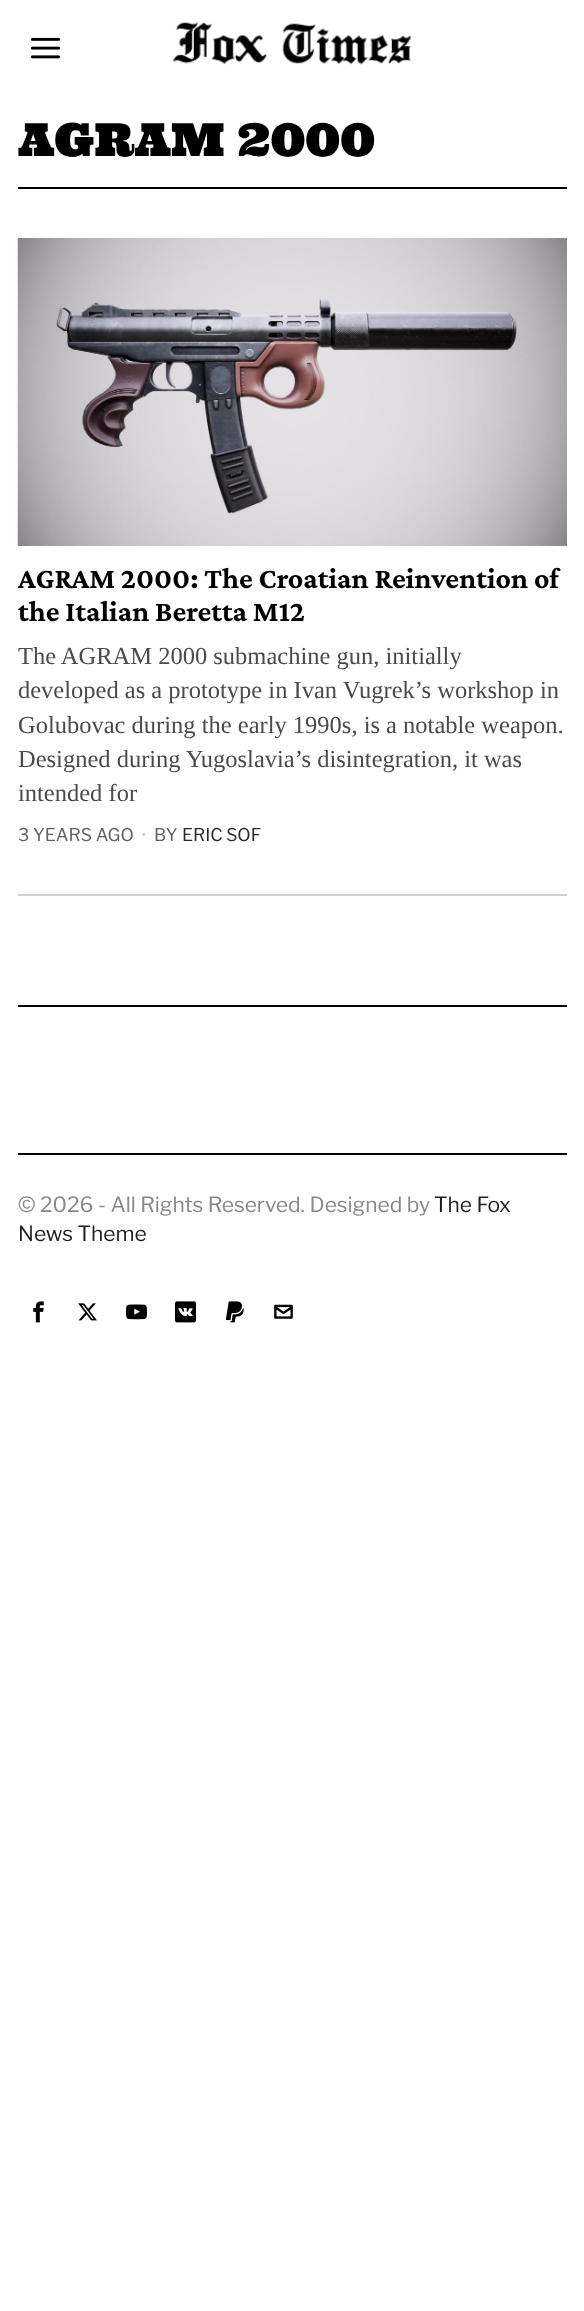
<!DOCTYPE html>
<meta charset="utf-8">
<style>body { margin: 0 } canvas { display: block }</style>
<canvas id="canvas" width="584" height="2311"></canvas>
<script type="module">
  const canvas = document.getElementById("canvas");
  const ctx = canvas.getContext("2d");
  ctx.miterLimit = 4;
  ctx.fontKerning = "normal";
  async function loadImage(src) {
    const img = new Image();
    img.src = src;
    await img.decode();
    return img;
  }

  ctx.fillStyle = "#ffffff";
  ctx.fillRect(0, 0, 584, 2311);
  ctx.drawImage(await loadImage("img1.png"), 30, 37, 31, 22);
  ctx.drawImage(await loadImage("img2.png"), 172, 22, 240, 43);
  ctx.fillStyle = "#000000";
  ctx.fillRect(18, 187, 549, 2);
  ctx.font = "45.5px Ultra";
  ctx.fillText("AGRAM 2000", 18, 156);
  ctx.fillStyle = "#d0d0d0";
  ctx.fillRect(18, 894, 549, 2);
  ctx.drawImage(await loadImage("img3.png"), 17, 238, 550, 308);
  ctx.font = "bold 29.75px Crimson Pro";
  ctx.fillStyle = "#000000";
  ctx.fillText("AGRAM 2000: The Croatian Reinvention of", 18, 588);
  ctx.fillText("the Italian Beretta M12", 18, 621);
  ctx.font = "24.5px Liberation Serif";
  ctx.fillStyle = "#4a4a4a";
  ctx.fillText("The AGRAM 2000 submachine gun, initially", 18, 664);
  ctx.fillText("developed as a prototype in Ivan Vugrek’s workshop in", 18, 698);
  ctx.fillText("Golubovac during the early 1990s, is a notable weapon.", 18, 733);
  ctx.fillText("Designed during Yugoslavia’s disintegration, it was", 18, 767);
  ctx.fillText("intended for", 18, 801);
  ctx.font = "17.5px Libre Franklin";
  ctx.fillStyle = "#616161";
  ctx.fillText("3 YEARS AGO", 18, 841);
  ctx.fillStyle = "#b0b0b0";
  ctx.fillText("·", 142, 841);
  ctx.fillStyle = "#616161";
  ctx.fillText("BY", 154, 841);
  ctx.fillStyle = "#292929";
  ctx.fillText("ERIC SOF", 182, 841);
  ctx.fillStyle = "#000000";
  ctx.fillRect(18, 1005, 549, 2);
  ctx.fillRect(18, 1153, 549, 2);
  ctx.font = "21px Libre Franklin";
  ctx.fillStyle = "#888888";
  ctx.fillText("© 2026 - All Rights Reserved. Designed by", 18, 1212);
  ctx.fillStyle = "#1e1e1e";
  ctx.fillText("The Fox", 434, 1212);
  ctx.fillText("News Theme", 18, 1241);
  ctx.drawImage(await loadImage("img4.png"), 33, 1301, 11, 22);
  ctx.drawImage(await loadImage("img5.png"), 78, 1303, 19, 18);
  ctx.drawImage(await loadImage("img6.png"), 126, 1304, 21, 16);
  ctx.drawImage(await loadImage("img7.png"), 175, 1301, 21, 22);
  ctx.drawImage(await loadImage("img8.png"), 225, 1301, 19, 22);
  ctx.drawImage(await loadImage("img9.png"), 274, 1304, 19, 15);
</script>
